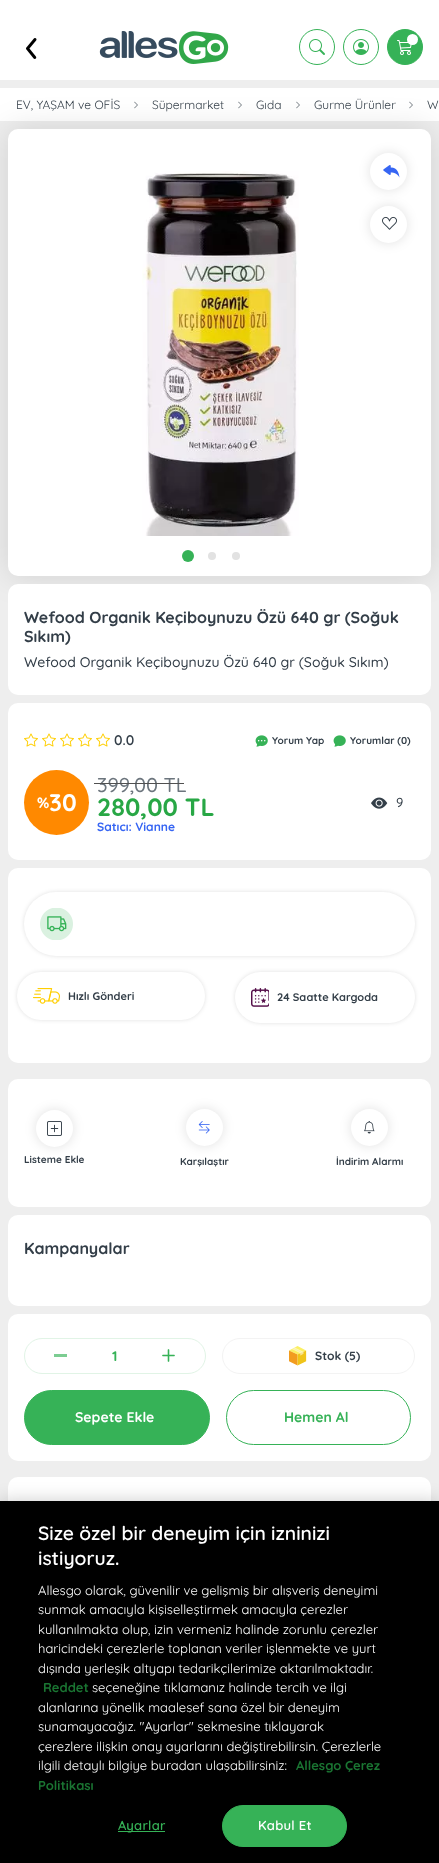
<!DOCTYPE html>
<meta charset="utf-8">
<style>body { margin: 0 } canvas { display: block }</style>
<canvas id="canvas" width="439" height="1863"></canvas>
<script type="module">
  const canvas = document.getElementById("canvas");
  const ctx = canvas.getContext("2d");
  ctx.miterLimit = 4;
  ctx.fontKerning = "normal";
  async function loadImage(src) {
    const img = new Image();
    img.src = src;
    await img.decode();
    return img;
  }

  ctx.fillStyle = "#ffffff";
  ctx.fillRect(0, 0, 439, 1863);
  ctx.drawImage(await loadImage("img1.png"), 26, 38, 11, 21);
  ctx.drawImage(await loadImage("img2.png"), 99, 31, 130, 33);
  ctx.beginPath();
  ctx.arc(317, 47, 17.5, 0, Math.PI * 2);
  ctx.strokeStyle = "#36b257";
  ctx.stroke();
  ctx.drawImage(await loadImage("img3.png"), 309, 39, 16, 16);
  ctx.beginPath();
  ctx.arc(361, 47, 17.5, 0, Math.PI * 2);
  ctx.stroke();
  ctx.drawImage(await loadImage("img4.png"), 353, 39, 16, 16);
  ctx.fillStyle = "#36b257";
  ctx.beginPath();
  ctx.arc(405, 47, 17.5, 0, Math.PI * 2);
  ctx.fill();
  ctx.stroke();
  ctx.drawImage(await loadImage("img5.png"), 397, 40, 15, 15);
  ctx.fillStyle = "#ffffff";
  ctx.beginPath();
  ctx.arc(412.5, 39.5, 5.5, 0, Math.PI * 2);
  ctx.fill();
  ctx.fillStyle = "#eeeeee";
  ctx.fillRect(0, 121, 439, 1380);
  ctx.fillRect(0, 80, 439, 8);
  ctx.font = "12px Quicksand";
  ctx.fillStyle = "#333e48";
  ctx.fillText("EV, YAŞAM ve OFİS", 16, 109);
  ctx.drawImage(await loadImage("img6.png"), 134, 101, 4, 8);
  ctx.fillText("Süpermarket", 152, 109);
  ctx.drawImage(await loadImage("img6.png"), 238, 101, 4, 8);
  ctx.fillText("Gıda", 256, 109);
  ctx.drawImage(await loadImage("img6.png"), 296, 101, 4, 8);
  ctx.fillText("Gurme Ürünler", 314, 109);
  ctx.drawImage(await loadImage("img6.png"), 409, 101, 4, 8);
  ctx.fillText("W", 427, 109);
  ctx.fillStyle = "rgba(0, 0, 0, 0.12)";
  ctx.filter = "blur(16px)";
  ctx.beginPath();
  ctx.roundRect(8, 129, 423, 447, 10);
  ctx.fill();
  ctx.filter = "none";
  ctx.fillStyle = "#ffffff";
  ctx.beginPath();
  ctx.roundRect(8, 129, 423, 447, 10);
  ctx.fill();
  ctx.drawImage(await loadImage("img7.png"), 142, 171, 157, 365);
  ctx.fillStyle = "rgba(6, 6, 6, 0.12)";
  ctx.filter = "blur(6px)";
  ctx.beginPath();
  ctx.roundRect(370, 206, 37, 37, 18.5);
  ctx.fill();
  ctx.filter = "none";
  ctx.fillStyle = "#ffffff";
  ctx.beginPath();
  ctx.arc(388.5, 224.5, 18.5, 0, Math.PI * 2);
  ctx.fill();
  ctx.fillStyle = "rgba(6, 6, 6, 0.12)";
  ctx.filter = "blur(6px)";
  ctx.beginPath();
  ctx.roundRect(370, 153, 37, 37, 18.5);
  ctx.fill();
  ctx.filter = "none";
  ctx.fillStyle = "#ffffff";
  ctx.beginPath();
  ctx.arc(388.5, 171.5, 18.5, 0, Math.PI * 2);
  ctx.fill();
  ctx.drawImage(await loadImage("img8.png"), 383, 165, 17, 13);
  ctx.drawImage(await loadImage("img9.png"), 382, 216, 15, 14);
  ctx.fillStyle = "#36b257";
  ctx.beginPath();
  ctx.arc(188, 556, 6, 0, Math.PI * 2);
  ctx.fill();
  ctx.fillStyle = "#e2e2e2";
  ctx.beginPath();
  ctx.arc(212, 556, 4, 0, Math.PI * 2);
  ctx.fill();
  ctx.beginPath();
  ctx.arc(236, 556, 4, 0, Math.PI * 2);
  ctx.fill();
  ctx.fillStyle = "#ffffff";
  ctx.beginPath();
  ctx.roundRect(8, 584, 423, 111, 10);
  ctx.fill();
  ctx.font = "bold 16px Quicksand";
  ctx.fillStyle = "#333e48";
  ctx.fillText("Wefood Organik Keçiboynuzu Özü 640 gr (Soğuk", 24, 623);
  ctx.fillText("Sıkım)", 24, 642);
  ctx.font = "500 14px Quicksand";
  ctx.fillText("Wefood Organik Keçiboynuzu Özü 640 gr (Soğuk Sıkım)", 24, 667);
  ctx.fillStyle = "#ffffff";
  ctx.beginPath();
  ctx.roundRect(8, 703, 423, 157, 10);
  ctx.fill();
  ctx.drawImage(await loadImage("img10.png"), 24, 733, 14, 14);
  ctx.drawImage(await loadImage("img10.png"), 42, 733, 14, 14);
  ctx.drawImage(await loadImage("img10.png"), 60, 733, 14, 14);
  ctx.drawImage(await loadImage("img10.png"), 78, 733, 14, 14);
  ctx.drawImage(await loadImage("img10.png"), 96, 733, 14, 14);
  ctx.font = "600 14px Quicksand";
  ctx.fillStyle = "#333e48";
  ctx.fillText("0.0", 114, 745);
  ctx.drawImage(await loadImage("img11.png"), 255, 735, 13, 12);
  ctx.font = "bold 10px Quicksand";
  ctx.fillText("Yorum Yap", 272, 744);
  ctx.drawImage(await loadImage("img12.png"), 333, 735, 13, 12);
  ctx.fillText("Yorumlar (0)", 350, 744);
  ctx.fillStyle = "#ff8900";
  ctx.beginPath();
  ctx.arc(56.5, 802.5, 32.5, 0, Math.PI * 2);
  ctx.fill();
  ctx.font = "bold 15px Quicksand";
  ctx.fillStyle = "#ffffff";
  ctx.fillText("%", 37, 808);
  ctx.font = "bold 24px Quicksand";
  ctx.fillText("30", 49, 811);
  ctx.font = "500 20px Quicksand";
  ctx.fillStyle = "#6c757d";
  ctx.fillText("399,00 TL", 97, 792);
  ctx.fillStyle = "#505050";
  ctx.fillRect(94, 783, 90, 1);
  ctx.font = "bold 25px Quicksand";
  ctx.fillStyle = "#28a745";
  ctx.fillText("280,00 TL", 97, 816);
  ctx.font = "bold 12px Quicksand";
  ctx.fillStyle = "#3665f3";
  ctx.fillText("Satıcı: Vianne", 97, 831);
  ctx.drawImage(await loadImage("img13.png"), 371, 797, 17, 12);
  ctx.font = "500 13px Quicksand";
  ctx.fillStyle = "#333e48";
  ctx.fillText("9", 396, 807);
  ctx.fillStyle = "#ffffff";
  ctx.beginPath();
  ctx.roundRect(8, 868, 423, 195, 10);
  ctx.fill();
  ctx.fillStyle = "rgba(6, 6, 6, 0.12)";
  ctx.filter = "blur(2px)";
  ctx.beginPath();
  ctx.roundRect(24, 892, 391, 64, 32);
  ctx.fill();
  ctx.filter = "none";
  ctx.fillStyle = "#ffffff";
  ctx.beginPath();
  ctx.roundRect(24, 892, 391, 64, 32);
  ctx.fill();
  ctx.drawImage(await loadImage("img14.png"), 40, 908, 33, 32);
  ctx.fillStyle = "rgba(6, 6, 6, 0.12)";
  ctx.filter = "blur(2px)";
  ctx.beginPath();
  ctx.roundRect(17, 972, 188, 48, 24);
  ctx.fill();
  ctx.filter = "none";
  ctx.fillStyle = "#ffffff";
  ctx.beginPath();
  ctx.roundRect(17, 972, 188, 48, 24);
  ctx.fill();
  ctx.drawImage(await loadImage("img15.png"), 33, 988, 27, 16);
  ctx.font = "bold 11px Quicksand";
  ctx.fillStyle = "#333e48";
  ctx.fillText("Hızlı Gönderi", 68, 1000);
  ctx.fillStyle = "rgba(6, 6, 6, 0.12)";
  ctx.filter = "blur(2px)";
  ctx.beginPath();
  ctx.roundRect(235, 972, 180, 51, 25.5);
  ctx.fill();
  ctx.filter = "none";
  ctx.fillStyle = "#ffffff";
  ctx.beginPath();
  ctx.roundRect(235, 972, 180, 51, 25.5);
  ctx.fill();
  ctx.drawImage(await loadImage("img16.png"), 251, 988, 18, 19);
  ctx.fillStyle = "#333e48";
  ctx.fillText("24 Saatte Kargoda", 277, 1001);
  ctx.fillStyle = "#ffffff";
  ctx.beginPath();
  ctx.roundRect(8, 1079, 423, 128, 10);
  ctx.fill();
  ctx.fillStyle = "rgba(6, 6, 6, 0.12)";
  ctx.filter = "blur(6px)";
  ctx.beginPath();
  ctx.roundRect(36, 1110, 37, 37, 18.5);
  ctx.fill();
  ctx.filter = "none";
  ctx.fillStyle = "#ffffff";
  ctx.beginPath();
  ctx.arc(54.5, 1128.5, 18.5, 0, Math.PI * 2);
  ctx.fill();
  ctx.drawImage(await loadImage("img17.png"), 47, 1121, 15, 15);
  ctx.font = "bold 10px Quicksand";
  ctx.fillStyle = "#333e48";
  ctx.fillText("Listeme Ekle", 24, 1163);
  ctx.fillStyle = "rgba(6, 6, 6, 0.12)";
  ctx.filter = "blur(6px)";
  ctx.beginPath();
  ctx.roundRect(186, 1109, 37, 37, 18.5);
  ctx.fill();
  ctx.filter = "none";
  ctx.fillStyle = "#ffffff";
  ctx.beginPath();
  ctx.arc(204.5, 1127.5, 18.5, 0, Math.PI * 2);
  ctx.fill();
  ctx.drawImage(await loadImage("img18.png"), 198, 1121, 12, 13);
  ctx.fillStyle = "#333e48";
  ctx.fillText("Karşılaştır", 180, 1165);
  ctx.fillStyle = "rgba(6, 6, 6, 0.12)";
  ctx.filter = "blur(6px)";
  ctx.beginPath();
  ctx.roundRect(351, 1109, 37, 37, 18.5);
  ctx.fill();
  ctx.filter = "none";
  ctx.fillStyle = "#ffffff";
  ctx.beginPath();
  ctx.arc(369.5, 1127.5, 18.5, 0, Math.PI * 2);
  ctx.fill();
  ctx.drawImage(await loadImage("img19.png"), 364, 1121, 11, 13);
  ctx.fillStyle = "#333e48";
  ctx.fillText("İndirim Alarmı", 336, 1165);
  ctx.fillStyle = "#ffffff";
  ctx.beginPath();
  ctx.roundRect(8, 1215, 423, 91, 10);
  ctx.fill();
  ctx.font = "bold 16px Quicksand";
  ctx.fillStyle = "#333e48";
  ctx.fillText("Kampanyalar", 24, 1254);
  ctx.fillStyle = "#ffffff";
  ctx.beginPath();
  ctx.roundRect(8, 1314, 423, 147, 10);
  ctx.fill();
  ctx.beginPath();
  ctx.roundRect(24.5, 1338.5, 181, 35, 17.5);
  ctx.strokeStyle = "#e1f4e6";
  ctx.stroke();
  ctx.fillStyle = "#7ccd92";
  ctx.fillRect(54, 1354, 13, 3);
  ctx.font = "bold 14px Quicksand";
  ctx.fillStyle = "#36b257";
  ctx.fillText("1", 112, 1361);
  ctx.drawImage(await loadImage("img20.png"), 162, 1349, 13, 13);
  ctx.beginPath();
  ctx.roundRect(222.5, 1338.5, 192, 35, 17.5);
  ctx.strokeStyle = "#f3f3f3";
  ctx.stroke();
  ctx.drawImage(await loadImage("img21.png"), 289, 1346, 18, 20);
  ctx.font = "bold 12px Quicksand";
  ctx.fillStyle = "#333e48";
  ctx.fillText("Stok (5)", 315, 1360);
  ctx.fillStyle = "#36b257";
  ctx.beginPath();
  ctx.roundRect(24.5, 1390.5, 185, 54, 27);
  ctx.fill();
  ctx.strokeStyle = "#36b257";
  ctx.stroke();
  ctx.font = "bold 14px Quicksand";
  ctx.fillStyle = "#ffffff";
  ctx.fillText("Sepete Ekle", 75, 1422);
  ctx.beginPath();
  ctx.roundRect(226.5, 1390.5, 184, 54, 27);
  ctx.stroke();
  ctx.fillStyle = "#36b257";
  ctx.fillText("Hemen Al", 284, 1422);
  ctx.fillStyle = "#ffffff";
  ctx.beginPath();
  ctx.roundRect(8, 1477, 423, 74, 10);
  ctx.fill();
  ctx.fillStyle = "rgba(0, 0, 0, 0.2)";
  ctx.filter = "blur(9px)";
  ctx.beginPath();
  ctx.rect(0, 1501, 439, 362);
  ctx.fill();
  ctx.filter = "none";
  ctx.fillStyle = "#000000";
  ctx.fillRect(0, 1501, 439, 362);
  ctx.font = "600 19.25px Quicksand";
  ctx.fillStyle = "#ffffff";
  ctx.fillText("Size özel bir deneyim için izninizi", 38, 1540);
  ctx.fillText("istiyoruz.", 38, 1565);
  ctx.font = "13px Quicksand";
  ctx.fillText("Allesgo olarak, güvenilir ve gelişmiş bir alışveriş deneyimi", 38, 1595);
  ctx.fillText("sunmak amacıyla kişiselleştirmek amacıyla çerezler", 38, 1614);
  ctx.fillText("kullanılmakta olup, izin vermeniz halinde zorunlu çerezler", 38, 1634);
  ctx.fillText("haricindeki çerezlerle toplanan veriler işlenmekte ve yurt", 38, 1653);
  ctx.fillText("dışında yerleşik altyapı tedarikçilerimize aktarılmaktadır.", 38, 1673);
  ctx.font = "bold 13px Quicksand";
  ctx.fillStyle = "#1a7532";
  ctx.fillText("Reddet", 43, 1692);
  ctx.font = "13px Quicksand";
  ctx.fillStyle = "#ffffff";
  ctx.fillText("seçeneğine tıklamanız halinde tercih ve ilgi", 92, 1692);
  ctx.fillText("alanlarına yönelik maalesef sana özel bir deneyim", 38, 1712);
  ctx.fillText("sunamayacağız. \"Ayarlar\" sekmesine tıklayarak", 38, 1731);
  ctx.fillText("çerezlere ilişkin onay ayarlarını değiştirebilirsin. Çerezlerle", 38, 1751);
  ctx.fillText("ilgili detaylı bilgiye buradan ulaşabilirsiniz:", 38, 1770);
  ctx.font = "bold 13px Quicksand";
  ctx.fillStyle = "#1a7532";
  ctx.fillText("Allesgo Çerez", 296, 1770);
  ctx.fillText("Politikası", 38, 1790);
  ctx.fillStyle = "#36b257";
  ctx.fillRect(118, 1831, 47, 1);
  ctx.letterSpacing = "0.25px";
  ctx.font = "600 13px Quicksand";
  ctx.fillText("Ayarlar", 118, 1830);
  ctx.beginPath();
  ctx.roundRect(222.5, 1805.5, 124, 41, 20.5);
  ctx.fill();
  ctx.stroke();
  ctx.fillStyle = "#ffffff";
  ctx.fillText("Kabul Et", 258, 1830);
</script>
